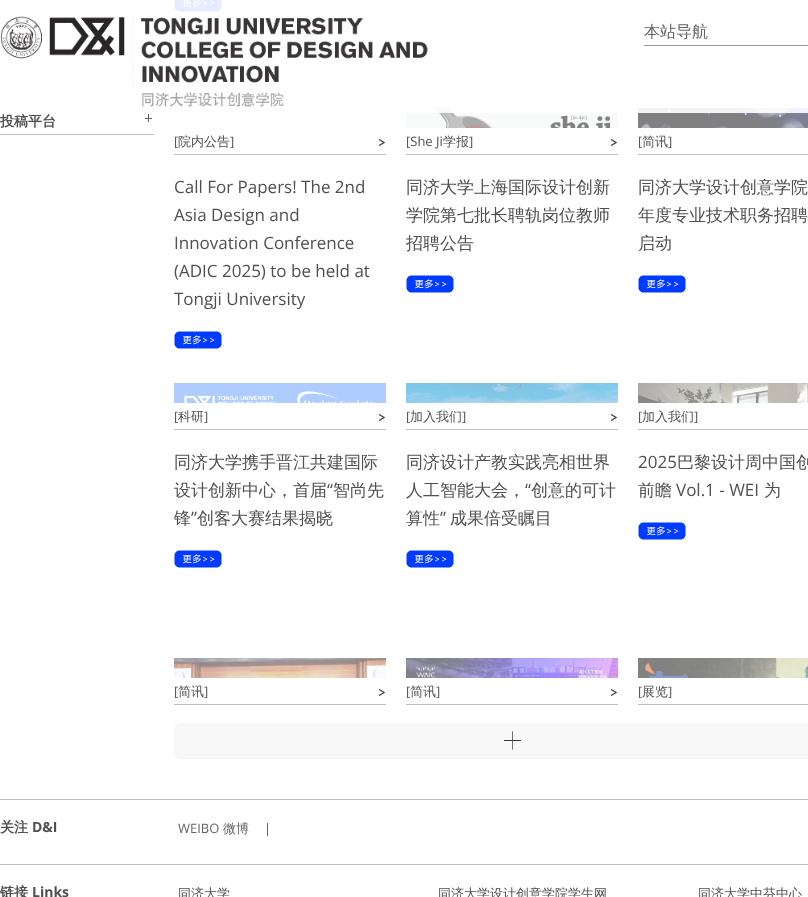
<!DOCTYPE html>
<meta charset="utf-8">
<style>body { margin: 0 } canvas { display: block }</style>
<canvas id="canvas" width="808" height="897"></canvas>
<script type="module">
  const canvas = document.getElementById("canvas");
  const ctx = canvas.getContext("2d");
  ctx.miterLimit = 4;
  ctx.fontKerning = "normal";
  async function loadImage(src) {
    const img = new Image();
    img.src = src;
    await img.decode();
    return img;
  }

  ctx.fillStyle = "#ffffff";
  ctx.fillRect(0, 0, 808, 897);
  ctx.drawImage(await loadImage("img2.png"), 131, 38, 22, 16);
  ctx.drawImage(await loadImage("img4.png"), 174, 0, 48, 12);
  ctx.drawImage(await loadImage("img6.png"), 406, 108, 212, 20);
  ctx.drawImage(await loadImage("img7.png"), 638, 108, 170, 20);
  ctx.fillStyle = "rgba(255, 255, 255, 0.9)";
  ctx.fillRect(131, 0, 677, 113);
  ctx.drawImage(await loadImage("img1.png"), 0, 16, 428, 91);
  ctx.fillStyle = "#979797";
  ctx.fillRect(644, 45, 164, 1);
  ctx.font = "500 16px WenQuanYi Zen Hei";
  ctx.fillStyle = "#646464";
  ctx.fillText("本站导航", 644, 37);
  ctx.drawImage(await loadImage("img3.png"), 145, 114, 7, 8);
  ctx.fillStyle = "#bfbfbf";
  ctx.fillRect(0, 134, 154, 1);
  ctx.font = "bold 14px WenQuanYi Zen Hei";
  ctx.fillStyle = "#505050";
  ctx.fillText("投稿平台", 0, 126);
  ctx.fillStyle = "#bfbfbf";
  ctx.fillRect(174, 154, 212, 1);
  ctx.drawImage(await loadImage("img5.png"), 379, 139, 6, 7);
  ctx.font = "13px Open Sans";
  ctx.fillStyle = "#505050";
  ctx.fillText("[", 174, 146);
  ctx.font = "500 13px WenQuanYi Zen Hei";
  ctx.fillText("院内公告", 178, 146);
  ctx.font = "13px Open Sans";
  ctx.fillText("]", 230, 146);
  ctx.fillStyle = "#bfbfbf";
  ctx.fillRect(406, 154, 212, 1);
  ctx.drawImage(await loadImage("img5.png"), 611, 139, 6, 7);
  ctx.fillStyle = "#505050";
  ctx.fillText("[She Ji", 406, 146);
  ctx.font = "500 13px WenQuanYi Zen Hei";
  ctx.fillText("学报", 443, 146);
  ctx.font = "13px Open Sans";
  ctx.fillText("]", 469, 146);
  ctx.fillStyle = "#bfbfbf";
  ctx.fillRect(638, 154, 170, 1);
  ctx.fillStyle = "#505050";
  ctx.fillText("[", 638, 146);
  ctx.font = "500 13px WenQuanYi Zen Hei";
  ctx.fillText("简讯", 642, 146);
  ctx.font = "13px Open Sans";
  ctx.fillText("]", 668, 146);
  ctx.fillStyle = "#bfbfbf";
  ctx.fillRect(174, 429, 212, 1);
  ctx.font = "17px Open Sans";
  ctx.fillStyle = "#505050";
  ctx.fillText("Call For Papers! The 2nd", 174, 193);
  ctx.fillText("Asia Design and", 174, 221);
  ctx.fillText("Innovation Conference", 174, 249);
  ctx.fillText("(ADIC 2025) to be held at", 174, 277);
  ctx.fillText("Tongji University", 174, 305);
  ctx.drawImage(await loadImage("img8.png"), 174, 331, 48, 18);
  ctx.drawImage(await loadImage("img9.png"), 174, 383, 212, 20);
  ctx.drawImage(await loadImage("img5.png"), 379, 414, 6, 7);
  ctx.font = "13px Open Sans";
  ctx.fillText("[", 174, 421);
  ctx.font = "500 13px WenQuanYi Zen Hei";
  ctx.fillText("科研", 178, 421);
  ctx.font = "13px Open Sans";
  ctx.fillText("]", 204, 421);
  ctx.fillStyle = "#bfbfbf";
  ctx.fillRect(406, 429, 212, 1);
  ctx.font = "500 17px WenQuanYi Zen Hei";
  ctx.fillStyle = "#505050";
  ctx.fillText("同济大学上海国际设计创新", 406, 193);
  ctx.fillText("学院第七批长聘轨岗位教师", 406, 221);
  ctx.fillText("招聘公告", 406, 249);
  ctx.drawImage(await loadImage("img8.png"), 406, 275, 48, 18);
  ctx.drawImage(await loadImage("img10.png"), 406, 383, 212, 20);
  ctx.drawImage(await loadImage("img5.png"), 611, 414, 6, 7);
  ctx.font = "13px Open Sans";
  ctx.fillText("[", 406, 421);
  ctx.font = "500 13px WenQuanYi Zen Hei";
  ctx.fillText("加入我们", 410, 421);
  ctx.font = "13px Open Sans";
  ctx.fillText("]", 462, 421);
  ctx.fillStyle = "#bfbfbf";
  ctx.fillRect(638, 429, 170, 1);
  ctx.font = "500 17px WenQuanYi Zen Hei";
  ctx.fillStyle = "#505050";
  ctx.fillText("同济大学设计创意学院", 638, 193);
  ctx.fillText("年度专业技术职务招聘", 638, 221);
  ctx.fillText("启动", 638, 249);
  ctx.drawImage(await loadImage("img8.png"), 638, 275, 48, 18);
  ctx.drawImage(await loadImage("img11.png"), 638, 383, 170, 20);
  ctx.font = "13px Open Sans";
  ctx.fillText("[", 638, 421);
  ctx.font = "500 13px WenQuanYi Zen Hei";
  ctx.fillText("加入我们", 642, 421);
  ctx.font = "13px Open Sans";
  ctx.fillText("]", 694, 421);
  ctx.fillStyle = "#bfbfbf";
  ctx.fillRect(174, 704, 212, 1);
  ctx.font = "500 17px WenQuanYi Zen Hei";
  ctx.fillStyle = "#505050";
  ctx.fillText("同济大学携手晋江共建国际", 174, 468);
  ctx.fillText("设计创新中心，首届", 174, 496);
  ctx.font = "17px Open Sans";
  ctx.fillText("“", 327, 496);
  ctx.font = "500 17px WenQuanYi Zen Hei";
  ctx.fillText("智尚先", 333, 496);
  ctx.fillText("锋", 174, 524);
  ctx.font = "17px Open Sans";
  ctx.fillText("”", 191, 524);
  ctx.font = "500 17px WenQuanYi Zen Hei";
  ctx.fillText("创客大赛结果揭晓", 197, 524);
  ctx.drawImage(await loadImage("img8.png"), 174, 550, 48, 18);
  ctx.drawImage(await loadImage("img12.png"), 174, 658, 212, 20);
  ctx.drawImage(await loadImage("img5.png"), 379, 689, 6, 7);
  ctx.font = "13px Open Sans";
  ctx.fillText("[", 174, 696);
  ctx.font = "500 13px WenQuanYi Zen Hei";
  ctx.fillText("简讯", 178, 696);
  ctx.font = "13px Open Sans";
  ctx.fillText("]", 204, 696);
  ctx.fillStyle = "#bfbfbf";
  ctx.fillRect(406, 704, 212, 1);
  ctx.font = "500 17px WenQuanYi Zen Hei";
  ctx.fillStyle = "#505050";
  ctx.fillText("同济设计产教实践亮相世界", 406, 468);
  ctx.fillText("人工智能大会，", 406, 496);
  ctx.font = "17px Open Sans";
  ctx.fillText("“", 525, 496);
  ctx.font = "500 17px WenQuanYi Zen Hei";
  ctx.fillText("创意的可计", 531, 496);
  ctx.fillText("算性", 406, 524);
  ctx.font = "17px Open Sans";
  ctx.fillText("”", 440, 524);
  ctx.font = "500 17px WenQuanYi Zen Hei";
  ctx.fillText("成果倍受瞩目", 450, 524);
  ctx.drawImage(await loadImage("img8.png"), 406, 550, 48, 18);
  ctx.drawImage(await loadImage("img13.png"), 406, 658, 212, 20);
  ctx.drawImage(await loadImage("img5.png"), 611, 689, 6, 7);
  ctx.font = "13px Open Sans";
  ctx.fillText("[", 406, 696);
  ctx.font = "500 13px WenQuanYi Zen Hei";
  ctx.fillText("简讯", 410, 696);
  ctx.font = "13px Open Sans";
  ctx.fillText("]", 436, 696);
  ctx.fillStyle = "#bfbfbf";
  ctx.fillRect(638, 704, 170, 1);
  ctx.font = "17px Open Sans";
  ctx.fillStyle = "#505050";
  ctx.fillText("2025", 638, 468);
  ctx.font = "500 17px WenQuanYi Zen Hei";
  ctx.fillText("巴黎设计周中国创", 677, 468);
  ctx.fillText("前瞻", 638, 496);
  ctx.font = "17px Open Sans";
  ctx.fillText("Vol.1 - WEI", 676, 496);
  ctx.font = "500 17px WenQuanYi Zen Hei";
  ctx.fillText("为", 764, 496);
  ctx.drawImage(await loadImage("img8.png"), 638, 522, 48, 18);
  ctx.drawImage(await loadImage("img14.png"), 638, 658, 170, 20);
  ctx.font = "13px Open Sans";
  ctx.fillText("[", 638, 696);
  ctx.font = "500 13px WenQuanYi Zen Hei";
  ctx.fillText("展览", 642, 696);
  ctx.font = "13px Open Sans";
  ctx.fillText("]", 668, 696);
  ctx.fillStyle = "#f8f8f8";
  ctx.beginPath();
  ctx.roundRect(174, 723, 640, 36, 6);
  ctx.fill();
  ctx.drawImage(await loadImage("img15.png"), 504, 731, 17, 19);
  ctx.fillStyle = "#bfbfbf";
  ctx.fillRect(0, 799, 808, 1);
  ctx.font = "bold 14px WenQuanYi Zen Hei";
  ctx.fillStyle = "#505050";
  ctx.fillText("关注", 0, 832);
  ctx.font = "bold 14px Open Sans";
  ctx.fillText("D&I", 32, 832);
  ctx.font = "13px Open Sans";
  ctx.fillStyle = "#646464";
  ctx.fillText("WEIBO", 178, 833);
  ctx.font = "500 13px WenQuanYi Zen Hei";
  ctx.fillText("微博", 223, 833);
  ctx.font = "13px Open Sans";
  ctx.fillStyle = "#505050";
  ctx.fillText("|", 264, 833);
  ctx.fillStyle = "#bfbfbf";
  ctx.fillRect(0, 864, 808, 1);
  ctx.font = "bold 14px WenQuanYi Zen Hei";
  ctx.fillStyle = "#505050";
  ctx.fillText("链接", 0, 897);
  ctx.font = "bold 14px Open Sans";
  ctx.fillText("Links", 32, 897);
  ctx.font = "500 13px WenQuanYi Zen Hei";
  ctx.fillText("同济大学", 178, 898);
  ctx.fillText("同济大学设计创意学院学生网", 438, 898);
  ctx.fillText("同济大学中芬中心", 698, 898);
</script>
